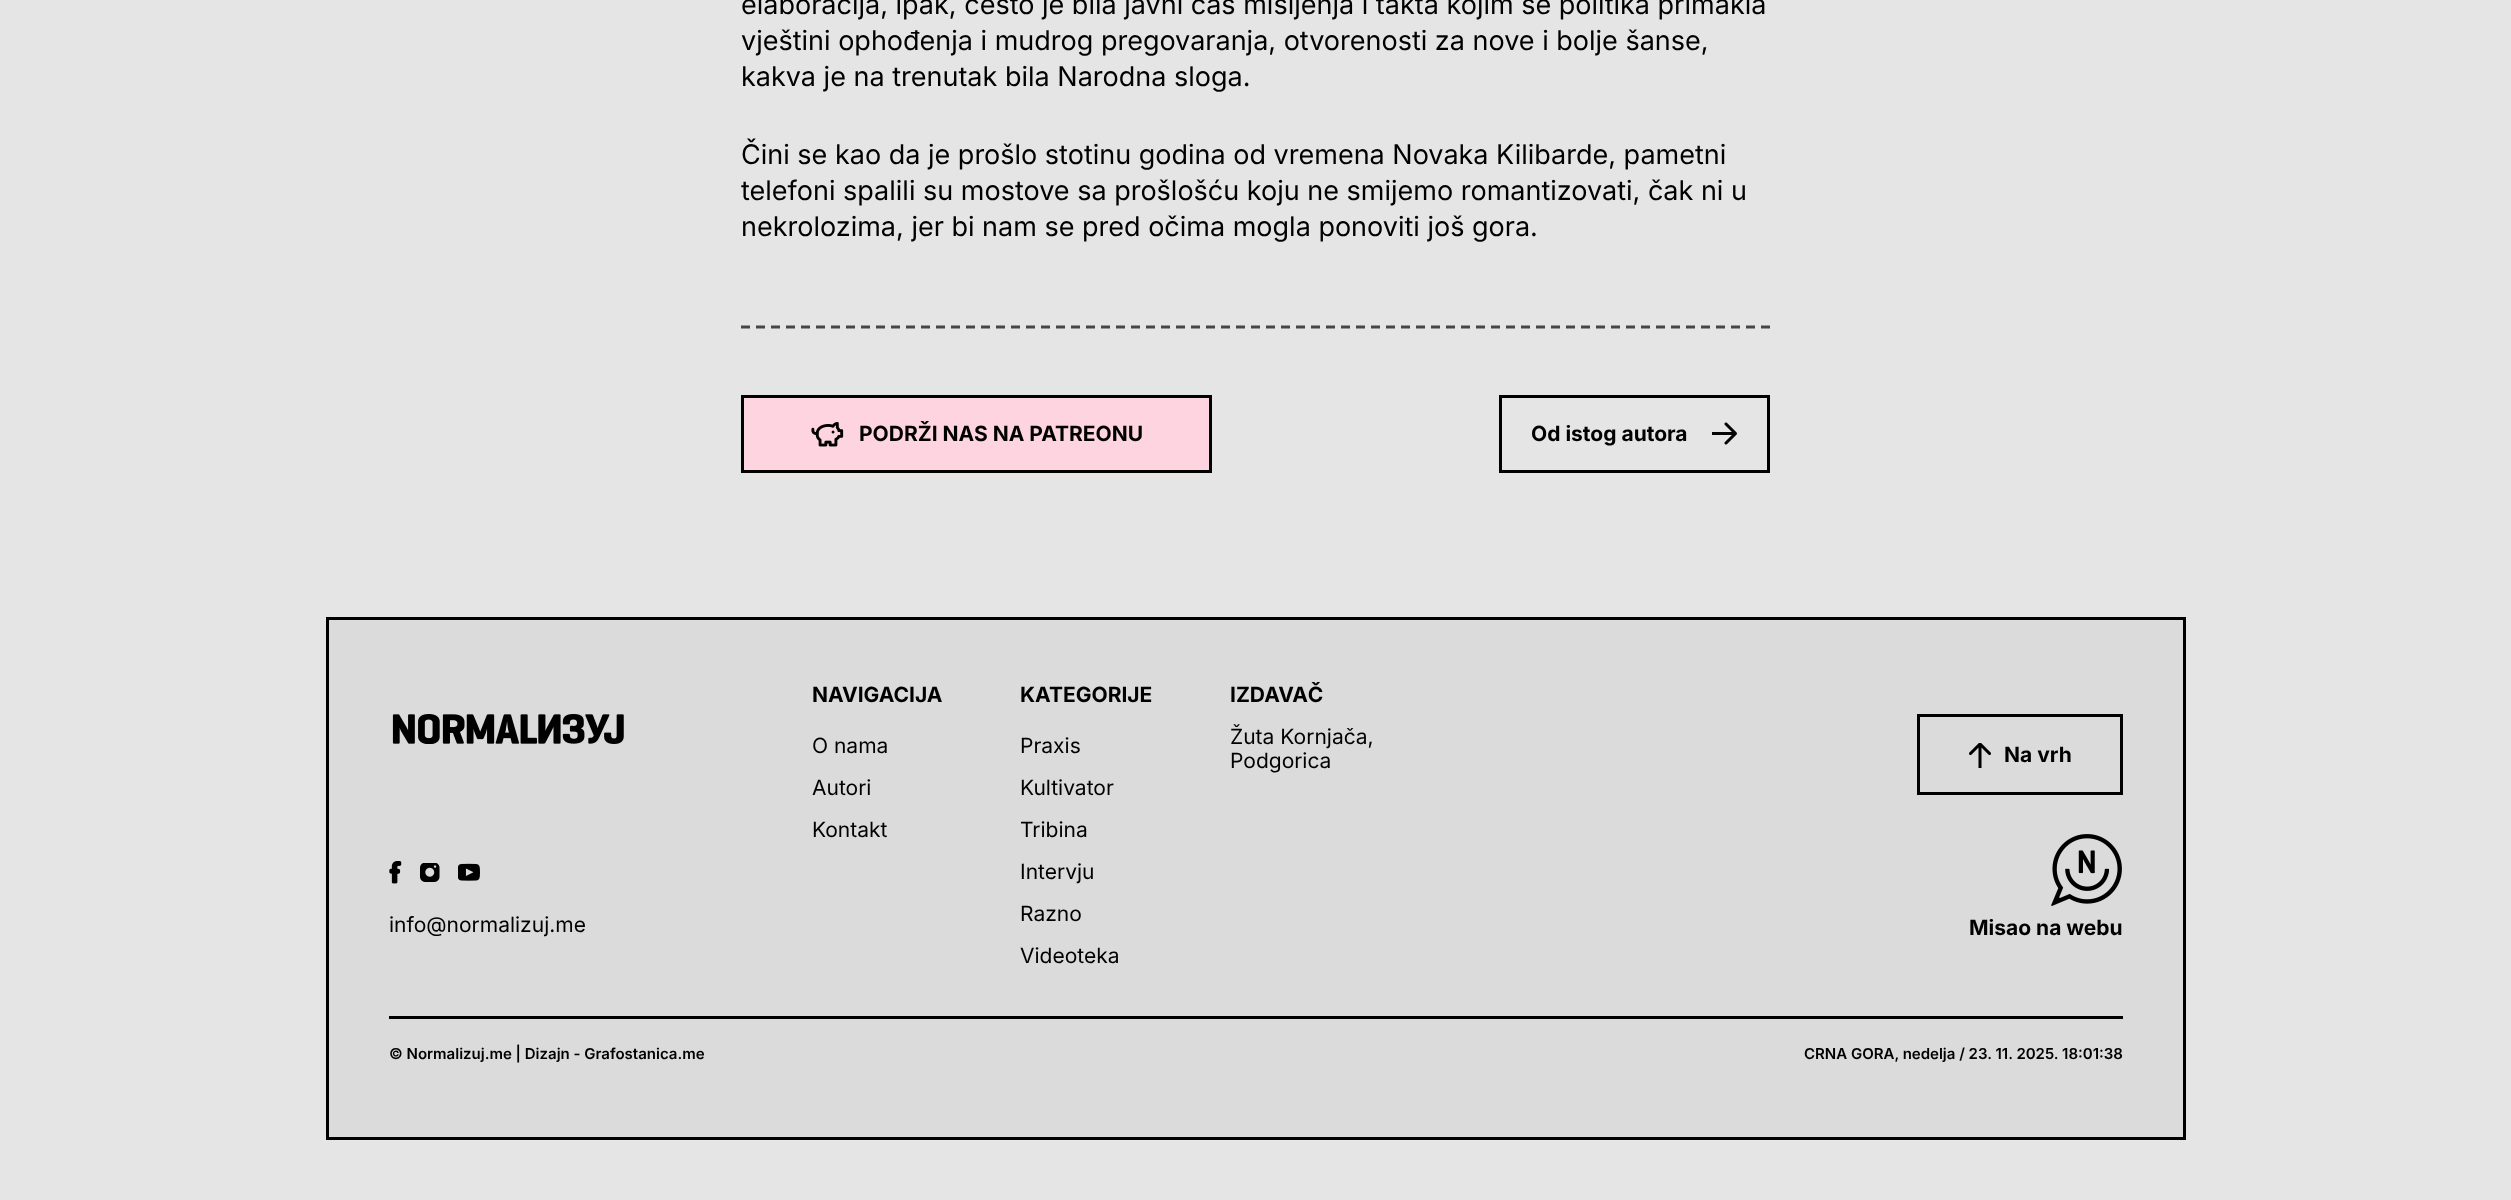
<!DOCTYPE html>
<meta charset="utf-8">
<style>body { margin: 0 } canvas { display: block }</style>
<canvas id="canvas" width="2511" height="1200"></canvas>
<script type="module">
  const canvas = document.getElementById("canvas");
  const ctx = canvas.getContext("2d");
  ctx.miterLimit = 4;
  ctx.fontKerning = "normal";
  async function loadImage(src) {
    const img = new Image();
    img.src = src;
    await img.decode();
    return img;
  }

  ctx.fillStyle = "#e5e5e5";
  ctx.fillRect(0, 0, 2511, 1200);
  ctx.font = "27px Inter";
  ctx.fillStyle = "#000000";
  ctx.fillText("elaboracija, ipak, često je bila javni čas mišljenja i takta kojim se politika primakla", 741, 14);
  ctx.fillText("vještini ophođenja i mudrog pregovaranja, otvorenosti za nove i bolje šanse,", 741, 50);
  ctx.fillText("kakva je na trenutak bila Narodna sloga.", 741, 86);
  ctx.fillText("Čini se kao da je prošlo stotinu godina od vremena Novaka Kilibarde, pametni", 741, 164);
  ctx.fillText("telefoni spalili su mostove sa prošlošću koju ne smijemo romantizovati, čak ni u", 741, 200);
  ctx.fillText("nekrolozima, jer bi nam se pred očima mogla ponoviti još gora.", 741, 236);
  ctx.beginPath();
  ctx.moveTo(741, 327);
  ctx.lineTo(1770, 327);
  ctx.strokeStyle = "#464646";
  ctx.lineWidth = 3;
  ctx.setLineDash([9, 6]);
  ctx.stroke();
  ctx.fillStyle = "#ffd4e1";
  ctx.beginPath();
  ctx.rect(742.5, 396.5, 468, 75);
  ctx.fill();
  ctx.strokeStyle = "#000000";
  ctx.setLineDash([]);
  ctx.stroke();
  ctx.drawImage(await loadImage("img1.png"), 811, 422, 33, 25);
  ctx.font = "bold 21px Inter";
  ctx.fillStyle = "#000000";
  ctx.fillText("PODRŽI NAS NA PATREONU", 859, 441);
  ctx.strokeRect(1500.5, 396.5, 268, 75);
  ctx.fillText("Od istog autora", 1531, 441);
  ctx.drawImage(await loadImage("img2.png"), 1712, 422, 25, 23);
  ctx.fillStyle = "#dbdbdb";
  ctx.beginPath();
  ctx.rect(327.5, 618.5, 1857, 520);
  ctx.fill();
  ctx.stroke();
  ctx.drawImage(await loadImage("img3.png"), 392, 714, 232, 30);
  ctx.drawImage(await loadImage("img4.png"), 389, 861, 13, 23);
  ctx.drawImage(await loadImage("img5.png"), 420, 863, 20, 19);
  ctx.drawImage(await loadImage("img6.png"), 458, 863, 22, 18);
  ctx.font = "21px Inter";
  ctx.fillStyle = "#000000";
  ctx.fillText("info@normalizuj.me", 389, 932);
  ctx.font = "bold 21px Inter";
  ctx.fillText("NAVIGACIJA", 812, 702);
  ctx.font = "21px Inter";
  ctx.fillText("O nama", 812, 753);
  ctx.fillText("Autori", 812, 795);
  ctx.fillText("Kontakt", 812, 837);
  ctx.font = "bold 21px Inter";
  ctx.fillText("KATEGORIJE", 1020, 702);
  ctx.font = "21px Inter";
  ctx.fillText("Praxis", 1020, 753);
  ctx.fillText("Kultivator", 1020, 795);
  ctx.fillText("Tribina", 1020, 837);
  ctx.fillText("Intervju", 1020, 879);
  ctx.fillText("Razno", 1020, 921);
  ctx.fillText("Videoteka", 1020, 963);
  ctx.font = "bold 21px Inter";
  ctx.fillText("IZDAVAČ", 1230, 702);
  ctx.font = "21px Inter";
  ctx.fillText("Žuta Kornjača,", 1230, 744);
  ctx.fillText("Podgorica", 1230, 768);
  ctx.strokeRect(1918.5, 715.5, 203, 78);
  ctx.drawImage(await loadImage("img7.png"), 1969, 743, 22, 25);
  ctx.font = "bold 21px Inter";
  ctx.fillText("Na vrh", 2004, 762);
  ctx.drawImage(await loadImage("img8.png"), 2051, 834, 71, 72);
  ctx.fillText("Misao na webu", 1969, 935);
  ctx.fillRect(389, 1016, 1734, 3);
  ctx.font = "600 15px Inter";
  ctx.fillText("© Normalizuj.me | Dizajn - Grafostanica.me", 389, 1059);
  ctx.fillText("CRNA GORA, nedelja / 23. 11. 2025. 18:01:38", 1804, 1059);
</script>
